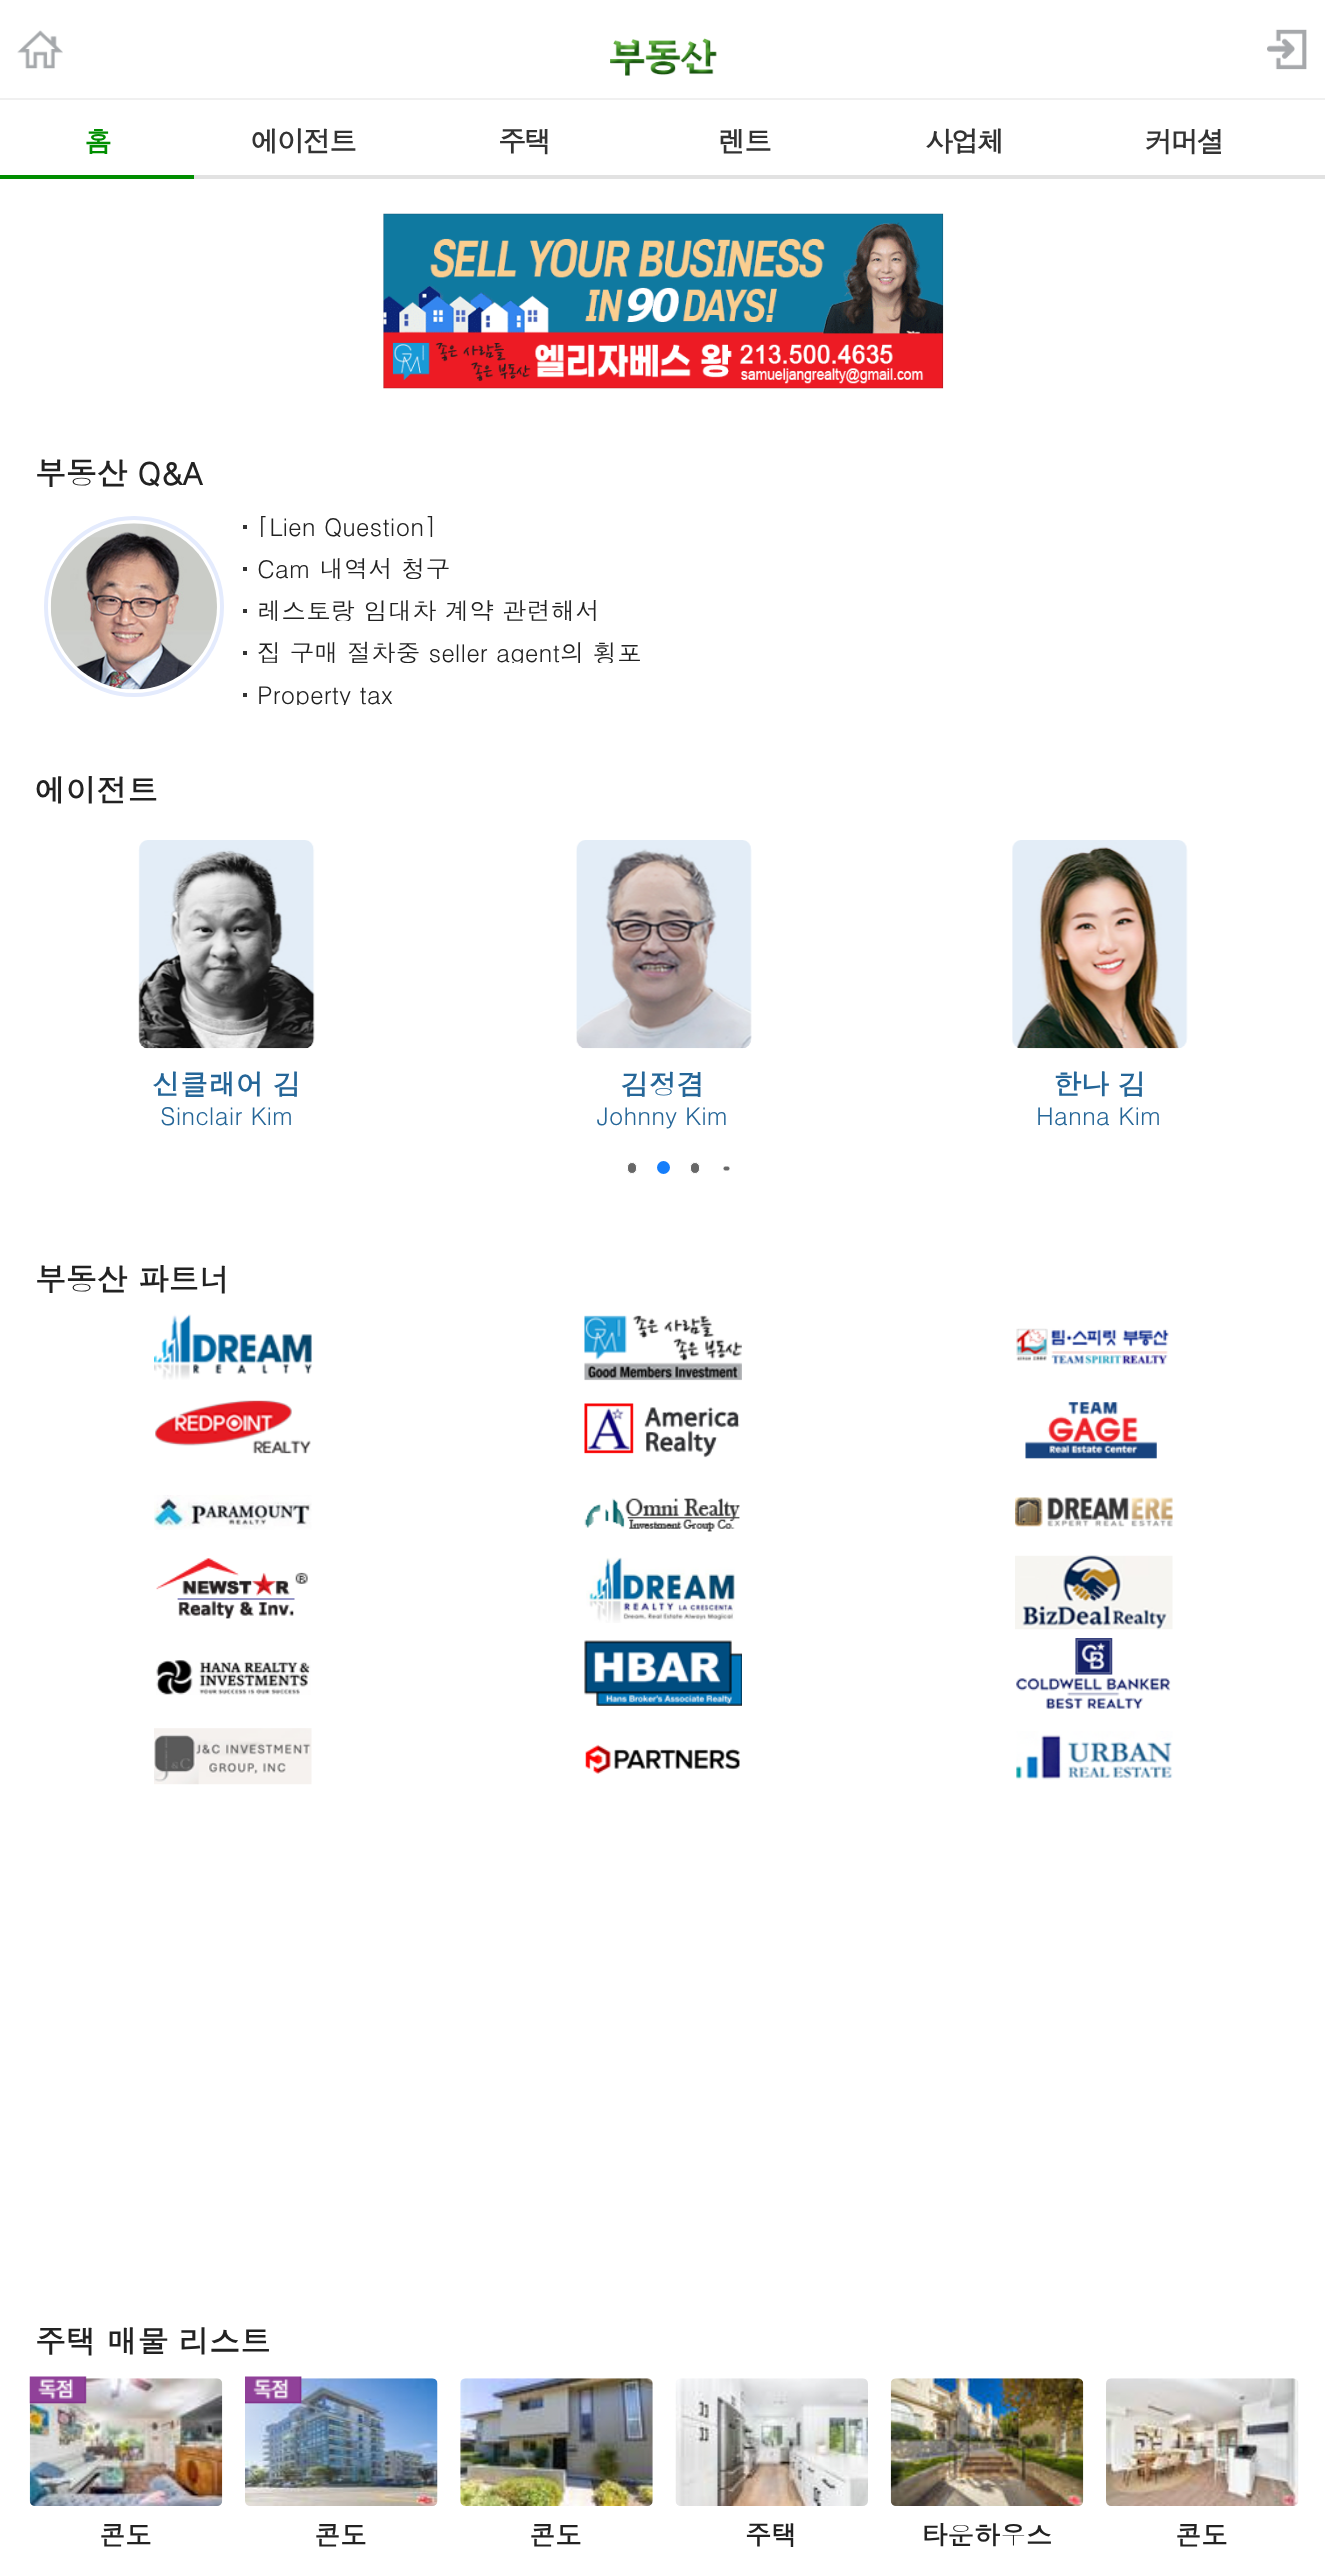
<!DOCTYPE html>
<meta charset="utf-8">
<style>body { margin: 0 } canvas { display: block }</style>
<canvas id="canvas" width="1325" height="2559"></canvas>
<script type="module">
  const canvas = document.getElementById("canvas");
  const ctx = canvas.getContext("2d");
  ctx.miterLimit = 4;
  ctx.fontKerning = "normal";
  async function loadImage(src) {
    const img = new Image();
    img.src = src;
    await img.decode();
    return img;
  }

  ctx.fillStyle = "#ffffff";
  ctx.fillRect(0, 0, 1325, 2559);
  ctx.drawImage(await loadImage("img1.png"), 17, 30, 46, 39);
  ctx.drawImage(await loadImage("img2.png"), 610, 38, 107, 38);
  ctx.drawImage(await loadImage("img3.png"), 1267, 29, 40, 41);
  ctx.fillStyle = "#f0f0f0";
  ctx.fillRect(0, 98, 1325, 2);
  ctx.fillStyle = "#e2e2e2";
  ctx.fillRect(194, 175, 1131, 4);
  ctx.letterSpacing = "-2px";
  ctx.font = "bold 28px Dotum";
  ctx.fillStyle = "#008e00";
  ctx.fillText("홈", 84, 152);
  ctx.fillRect(0, 175, 194, 4);
  ctx.fillStyle = "#333333";
  ctx.fillText("에이전트", 251, 152);
  ctx.fillText("주택", 498, 152);
  ctx.fillText("렌트", 718, 152);
  ctx.fillText("사업체", 925, 152);
  ctx.fillText("커머셜", 1145, 152);
  ctx.drawImage(await loadImage("img4.png"), 383, 213, 561, 176);
  ctx.letterSpacing = "0px";
  ctx.font = "bold 30.75px Dotum";
  ctx.fillStyle = "#222222";
  ctx.fillText("부동산 Q&A", 35, 485);
  ctx.beginPath();
  ctx.roundRect(46, 518, 176, 177, 88);
  ctx.strokeStyle = "#e4ebfd";
  ctx.lineWidth = 4;
  ctx.stroke();
  ctx.drawImage(await loadImage("img5.png"), 50, 523, 167, 167);
  ctx.fillStyle = "#333333";
  ctx.fillRect(243, 525, 4, 4);
  ctx.save();
  ctx.beginPath();
  ctx.rect(231, 513, 551, 24);
  ctx.clip();
  ctx.font = "24.5px Dotum";
  ctx.fillStyle = "#222222";
  ctx.fillText("[Lien Question]", 257, 536);
  ctx.restore();
  ctx.fillRect(243, 567, 4, 4);
  ctx.save();
  ctx.beginPath();
  ctx.rect(231, 555, 551, 24);
  ctx.clip();
  ctx.font = "24.5px Dotum";
  ctx.fillStyle = "#222222";
  ctx.fillText("Cam 내역서 청구", 257, 578);
  ctx.restore();
  ctx.fillRect(243, 609, 4, 4);
  ctx.save();
  ctx.beginPath();
  ctx.rect(231, 597, 551, 24);
  ctx.clip();
  ctx.font = "24.5px Dotum";
  ctx.fillStyle = "#222222";
  ctx.fillText("레스토랑 임대차 계약 관련해서", 257, 620);
  ctx.restore();
  ctx.fillRect(243, 651, 4, 4);
  ctx.save();
  ctx.beginPath();
  ctx.rect(231, 639, 551, 24);
  ctx.clip();
  ctx.font = "24.5px Dotum";
  ctx.fillStyle = "#222222";
  ctx.fillText("집 구매 절차중 seller agent의 횡포", 257, 662);
  ctx.restore();
  ctx.fillRect(243, 693, 4, 4);
  ctx.save();
  ctx.beginPath();
  ctx.rect(231, 681, 551, 24);
  ctx.clip();
  ctx.font = "24.5px Dotum";
  ctx.fillStyle = "#222222";
  ctx.fillText("Property tax", 257, 704);
  ctx.restore();
  ctx.fillStyle = "#222222";
  ctx.fillText("에이전트", 35, 802);
  ctx.drawImage(await loadImage("img6.png"), 138, 840, 177, 209);
  ctx.font = "bold 28px Dotum";
  ctx.fillStyle = "#256698";
  ctx.fillText("신클래어 김", 152, 1095);
  ctx.font = "24.5px Dotum";
  ctx.fillText("Sinclair Kim", 160, 1125);
  ctx.drawImage(await loadImage("img7.png"), 576, 840, 176, 209);
  ctx.font = "bold 28px Dotum";
  ctx.fillText("김정겸", 621, 1095);
  ctx.font = "24.5px Dotum";
  ctx.fillText("Johnny Kim", 597, 1125);
  ctx.drawImage(await loadImage("img8.png"), 1012, 840, 176, 209);
  ctx.font = "bold 28px Dotum";
  ctx.fillText("한나 김", 1053, 1095);
  ctx.font = "24.5px Dotum";
  ctx.fillText("Hanna Kim", 1036, 1125);
  ctx.fillStyle = "#676767";
  ctx.beginPath();
  ctx.roundRect(627.5, 1162.5, 9, 11, 4.5);
  ctx.fill();
  ctx.strokeStyle = "#ffffff";
  ctx.lineWidth = 1;
  ctx.stroke();
  ctx.fillStyle = "#157efb";
  ctx.beginPath();
  ctx.arc(663.5, 1167.5, 7.5, 0, Math.PI * 2);
  ctx.fill();
  ctx.lineWidth = 2;
  ctx.stroke();
  ctx.fillStyle = "#676767";
  ctx.beginPath();
  ctx.roundRect(690.5, 1162.5, 9, 11, 4.5);
  ctx.fill();
  ctx.lineWidth = 1;
  ctx.stroke();
  ctx.beginPath();
  ctx.roundRect(723.25, 1166.25, 6.5, 4.5, 2.25);
  ctx.fill();
  ctx.lineWidth = 0.5;
  ctx.stroke();
  ctx.font = "bold 30.75px Dotum";
  ctx.fillStyle = "#222222";
  ctx.fillText("부동산 파트너", 35, 1291);
  ctx.drawImage(await loadImage("img9.png"), 154, 1314, 158, 66);
  ctx.drawImage(await loadImage("img10.png"), 584, 1315, 158, 66);
  ctx.drawImage(await loadImage("img11.png"), 1016, 1328, 153, 37);
  ctx.drawImage(await loadImage("img12.png"), 155, 1400, 156, 54);
  ctx.drawImage(await loadImage("img13.png"), 584, 1403, 156, 55);
  ctx.drawImage(await loadImage("img14.png"), 1025, 1402, 132, 57);
  ctx.drawImage(await loadImage("img15.png"), 154, 1495, 158, 35);
  ctx.drawImage(await loadImage("img16.png"), 584, 1498, 156, 34);
  ctx.drawImage(await loadImage("img17.png"), 1015, 1497, 158, 30);
  ctx.drawImage(await loadImage("img18.png"), 156, 1558, 152, 61);
  ctx.drawImage(await loadImage("img19.png"), 586, 1557, 149, 66);
  ctx.drawImage(await loadImage("img20.png"), 1015, 1555, 158, 75);
  ctx.drawImage(await loadImage("img21.png"), 156, 1660, 155, 35);
  ctx.drawImage(await loadImage("img22.png"), 584, 1640, 158, 66);
  ctx.drawImage(await loadImage("img23.png"), 1016, 1638, 155, 71);
  ctx.drawImage(await loadImage("img24.png"), 154, 1728, 158, 57);
  ctx.drawImage(await loadImage("img25.png"), 585, 1744, 155, 30);
  ctx.drawImage(await loadImage("img26.png"), 1016, 1731, 157, 49);
  ctx.fillText("주택 매물 리스트", 35, 2353);
  ctx.drawImage(await loadImage("img28.png"), 29, 2378, 194, 128);
  ctx.drawImage(await loadImage("img27.png"), 29, 2376, 58, 28);
  ctx.font = "bold 26.25px Dotum";
  ctx.fillText("콘도", 99, 2545);
  ctx.drawImage(await loadImage("img30.png"), 245, 2378, 193, 128);
  ctx.drawImage(await loadImage("img29.png"), 245, 2376, 57, 28);
  ctx.fillText("콘도", 314, 2545);
  ctx.drawImage(await loadImage("img31.png"), 460, 2378, 193, 128);
  ctx.fillText("콘도", 529, 2545);
  ctx.drawImage(await loadImage("img32.png"), 675, 2378, 193, 128);
  ctx.fillText("주택", 745, 2545);
  ctx.drawImage(await loadImage("img33.png"), 890, 2378, 194, 128);
  ctx.fillText("타운하우스", 921, 2545);
  ctx.drawImage(await loadImage("img34.png"), 1106, 2378, 193, 128);
  ctx.fillText("콘도", 1175, 2545);
</script>
